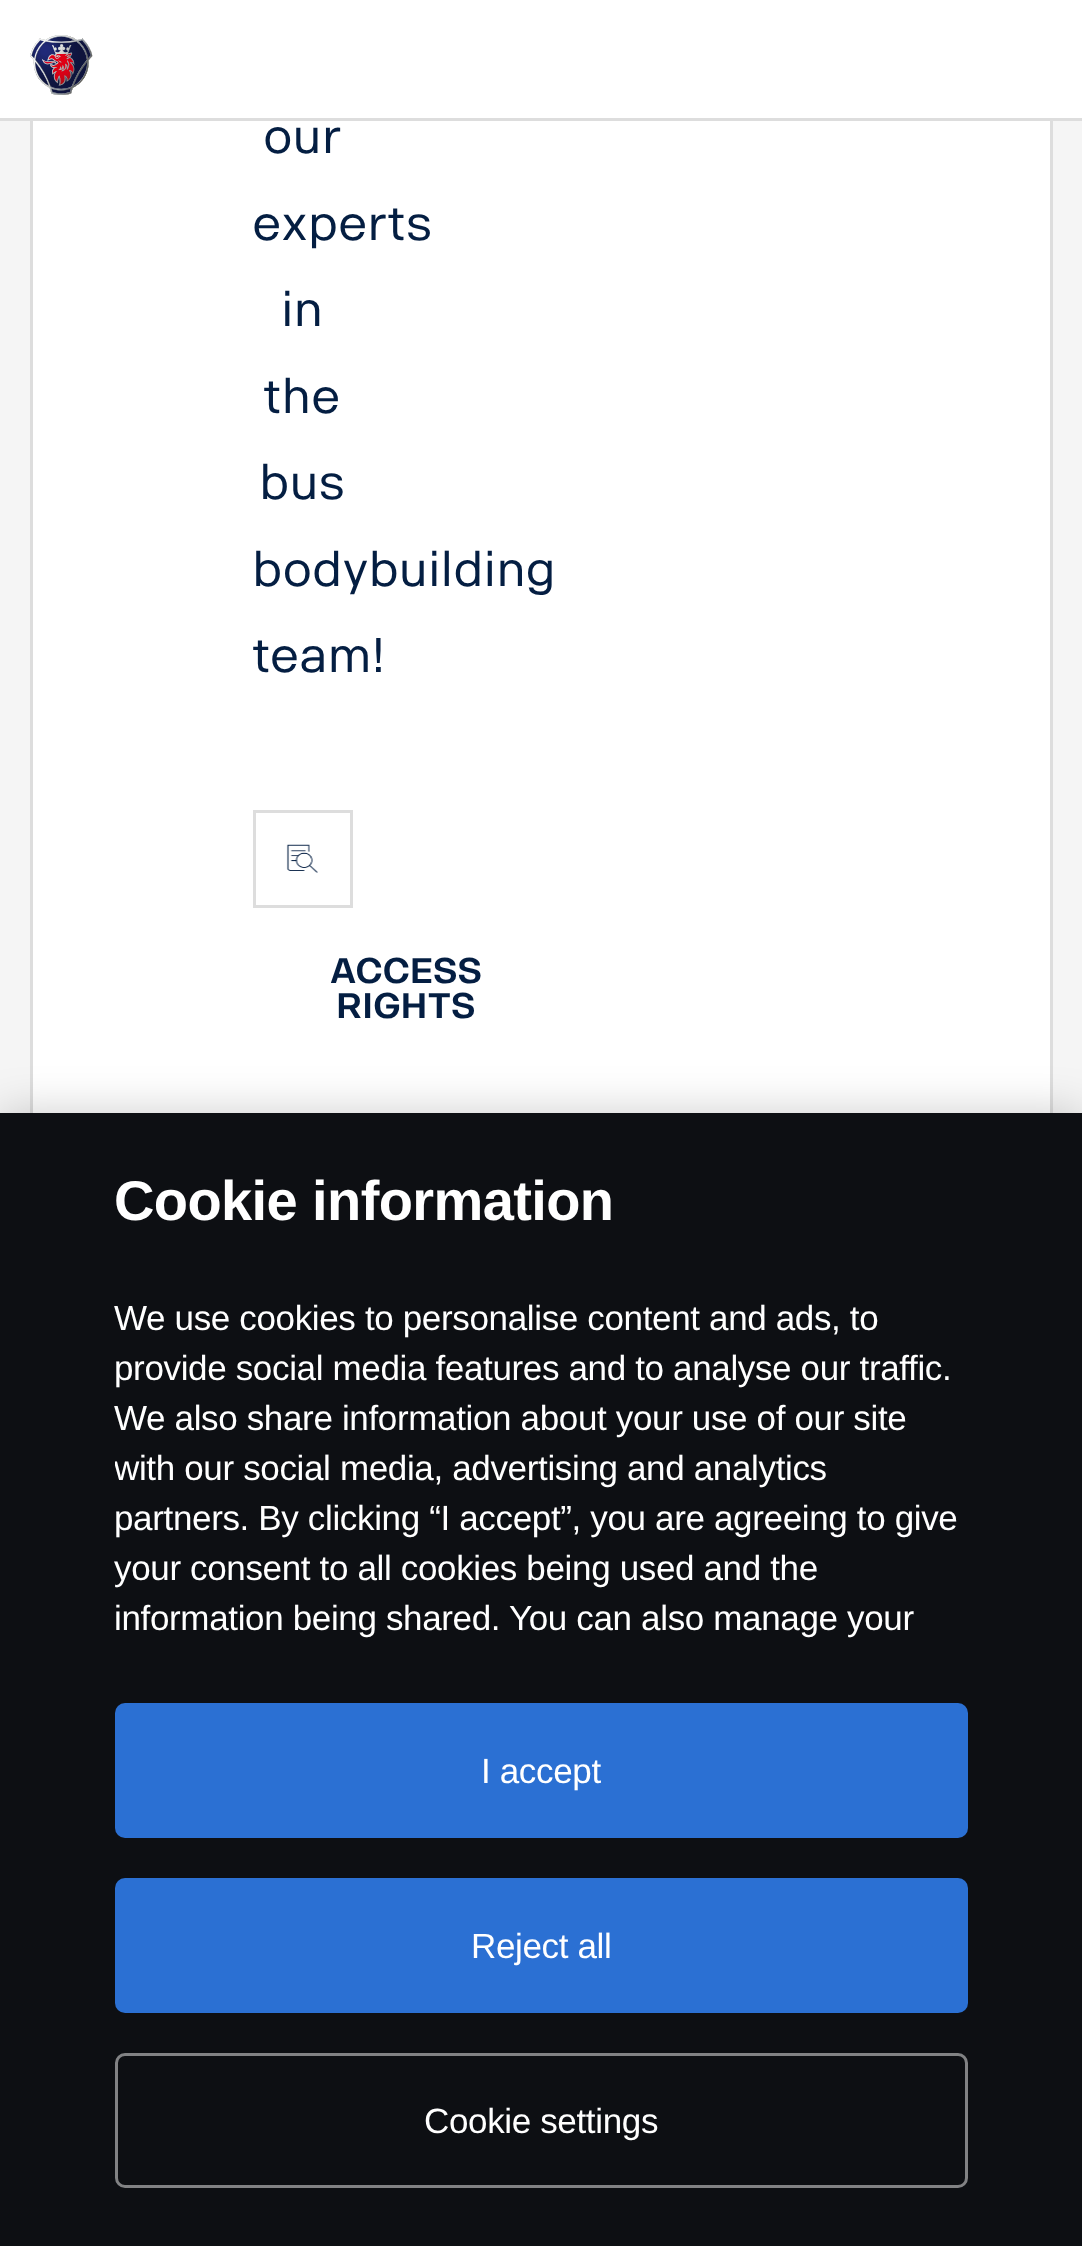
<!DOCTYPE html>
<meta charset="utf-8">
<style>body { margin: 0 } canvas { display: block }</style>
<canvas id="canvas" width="1082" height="2246"></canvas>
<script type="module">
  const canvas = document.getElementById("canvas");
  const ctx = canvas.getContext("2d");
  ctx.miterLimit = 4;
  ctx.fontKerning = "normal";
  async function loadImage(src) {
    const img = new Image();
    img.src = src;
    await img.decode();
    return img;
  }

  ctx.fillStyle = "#f5f5f5";
  ctx.fillRect(0, 0, 1082, 2246);
  ctx.fillStyle = "#ffffff";
  ctx.fillRect(33, 121, 1017, 992);
  ctx.strokeStyle = "#dddddd";
  ctx.lineWidth = 3;
  ctx.strokeRect(31.5, -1.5, 1020, 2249);
  ctx.fillRect(0, 0, 1082, 118);
  ctx.fillStyle = "#dddddd";
  ctx.fillRect(0, 118, 1082, 3);
  ctx.drawImage(await loadImage("img1.png"), 30, 35, 63, 60);
  ctx.font = "48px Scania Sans";
  ctx.fillStyle = "#041e42";
  ctx.fillText("our", 263, 153);
  ctx.fillText("experts", 252, 240);
  ctx.fillText("in", 281, 326);
  ctx.fillText("the", 263, 413);
  ctx.fillText("bus", 259, 499);
  ctx.fillText("bodybuilding", 252, 586);
  ctx.fillText("team!", 252, 672);
  ctx.strokeRect(254.5, 811.5, 97, 95);
  ctx.drawImage(await loadImage("img2.png"), 286, 844, 32, 29);
  ctx.font = "bold 35px Scania Sans";
  ctx.fillText("ACCESS", 330, 983);
  ctx.fillText("RIGHTS", 336, 1018);
  ctx.fillStyle = "rgba(0, 0, 0, 0.2)";
  ctx.filter = "blur(22.5px)";
  ctx.beginPath();
  ctx.rect(0, 1113, 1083, 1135);
  ctx.fill();
  ctx.filter = "none";
  ctx.fillStyle = "#0d0f13";
  ctx.fillRect(0, 1113, 1082, 1133);
  ctx.letterSpacing = "-0.6px";
  ctx.font = "bold 56px Liberation Sans";
  ctx.fillStyle = "#ffffff";
  ctx.fillText("Cookie information", 114, 1220);
  ctx.letterSpacing = "-0.35px";
  ctx.font = "35px Liberation Sans";
  ctx.fillText("We use cookies to personalise content and ads, to", 114, 1330);
  ctx.fillText("provide social media features and to analyse our traffic.", 114, 1380);
  ctx.fillText("We also share information about your use of our site", 114, 1430);
  ctx.save();
  ctx.beginPath();
  ctx.rect(115, 1293, 903, 350);
  ctx.clip();
  ctx.fillText("with our social media, advertising and analytics", 114, 1480);
  ctx.restore();
  ctx.fillText("partners. By clicking “I accept”, you are agreeing to give", 114, 1530);
  ctx.fillText("your consent to all cookies being used and the", 114, 1580);
  ctx.fillText("information being shared. You can also manage your", 114, 1630);
  ctx.fillStyle = "#2b70d3";
  ctx.beginPath();
  ctx.roundRect(115, 1703, 853, 135, 10);
  ctx.fill();
  ctx.fillStyle = "#ffffff";
  ctx.fillText("I accept", 481, 1783);
  ctx.fillStyle = "#2b70d3";
  ctx.beginPath();
  ctx.roundRect(115, 1878, 853, 135, 10);
  ctx.fill();
  ctx.fillStyle = "#ffffff";
  ctx.fillText("Reject all", 471, 1958);
  ctx.beginPath();
  ctx.roundRect(116.5, 2054.5, 850, 132, 8.5);
  ctx.strokeStyle = "#818284";
  ctx.stroke();
  ctx.fillText("Cookie settings", 424, 2133);
</script>
